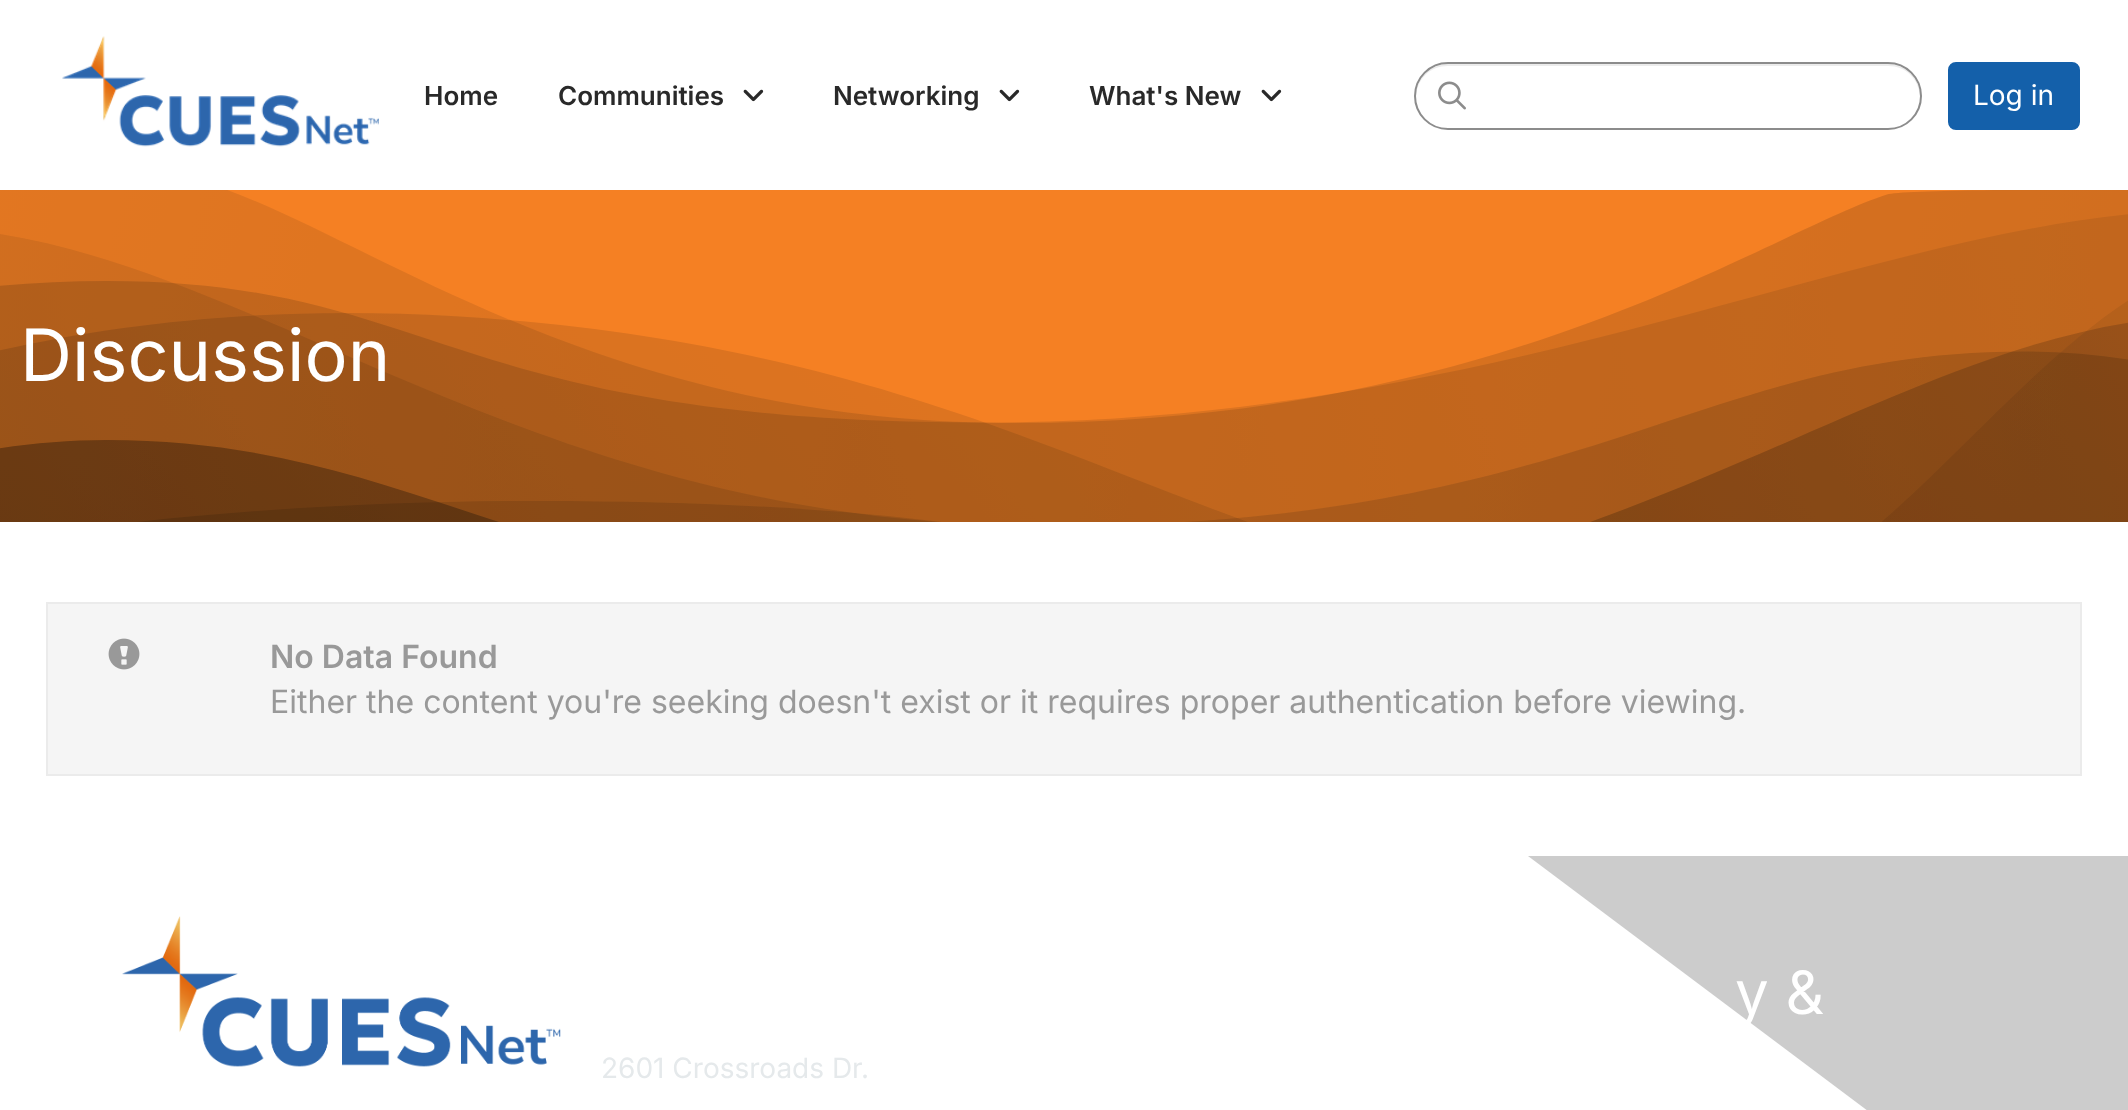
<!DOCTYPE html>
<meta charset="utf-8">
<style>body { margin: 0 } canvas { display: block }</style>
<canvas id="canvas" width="2128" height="1110"></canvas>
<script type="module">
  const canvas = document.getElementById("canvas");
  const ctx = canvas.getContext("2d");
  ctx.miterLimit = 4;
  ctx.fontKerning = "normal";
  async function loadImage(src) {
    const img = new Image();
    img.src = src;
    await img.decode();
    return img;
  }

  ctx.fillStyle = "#ffffff";
  ctx.fillRect(0, 0, 2128, 1110);
  ctx.drawImage(await loadImage("img1.png"), 62, 36, 317, 111);
  ctx.font = "600 26px Inter";
  ctx.fillStyle = "#292929";
  ctx.fillText("Home", 424, 105);
  ctx.fillText("Communities", 558, 105);
  ctx.drawImage(await loadImage("img2.png"), 743, 89, 21, 13);
  ctx.fillText("Networking", 833, 105);
  ctx.drawImage(await loadImage("img2.png"), 999, 89, 21, 13);
  ctx.fillText("What's New", 1089, 105);
  ctx.drawImage(await loadImage("img2.png"), 1261, 89, 21, 13);
  ctx.fillStyle = "#ececec";
  ctx.beginPath();
  ctx.moveTo(1448, 66);
  ctx.lineTo(1888, 66);
  ctx.bezierCurveTo(1906, 66, 1919, 79, 1920, 97);
  ctx.bezierCurveTo(1921, 79, 1906, 64, 1888, 64);
  ctx.lineTo(1448, 64);
  ctx.bezierCurveTo(1430, 64, 1415, 79, 1416, 97);
  ctx.bezierCurveTo(1417, 79, 1430, 66, 1448, 66);
  ctx.closePath();
  ctx.fill();
  ctx.beginPath();
  ctx.roundRect(1415, 63, 506, 66, 33);
  ctx.strokeStyle = "#8c8c8c";
  ctx.lineWidth = 2;
  ctx.stroke();
  ctx.drawImage(await loadImage("img3.png"), 1438, 81, 28, 29);
  ctx.fillStyle = "#1460aa";
  ctx.beginPath();
  ctx.roundRect(1949, 63, 130, 66, 7);
  ctx.fill();
  ctx.strokeStyle = "#1460aa";
  ctx.stroke();
  ctx.font = "28px Inter";
  ctx.fillStyle = "#ffffff";
  ctx.fillText("Log in", 1973, 105);
  ctx.drawImage(await loadImage("img4.png"), 0, 190, 2128, 332);
  ctx.font = "72px Inter";
  ctx.fillText("Discussion", 20, 381);
  ctx.fillStyle = "#f5f5f5";
  ctx.beginPath();
  ctx.rect(47, 603, 2034, 172);
  ctx.fill();
  ctx.strokeStyle = "#ebebeb";
  ctx.stroke();
  ctx.drawImage(await loadImage("img5.png"), 108, 638, 32, 32);
  ctx.font = "600 32px Inter";
  ctx.fillStyle = "#999999";
  ctx.fillText("No Data Found", 270, 668);
  ctx.font = "32px Inter";
  ctx.fillText("Either the content you're seeking doesn't exist or it requires proper authentication before viewing.", 270, 713);
  ctx.drawImage(await loadImage("img6.png"), 122, 916, 439, 151);
  ctx.fillStyle = "#cccccc";
  ctx.beginPath();
  ctx.moveTo(2128, 856);
  ctx.lineTo(2128, 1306);
  ctx.lineTo(1528, 856);
  ctx.closePath();
  ctx.fill();
  ctx.font = "60px Inter";
  ctx.fillStyle = "#ffffff";
  ctx.fillText("y &", 1735, 1014);
  ctx.font = "28px Inter";
  ctx.fillStyle = "#e5e9eb";
  ctx.fillText("2601 Crossroads Dr.", 601, 1078);
</script>
